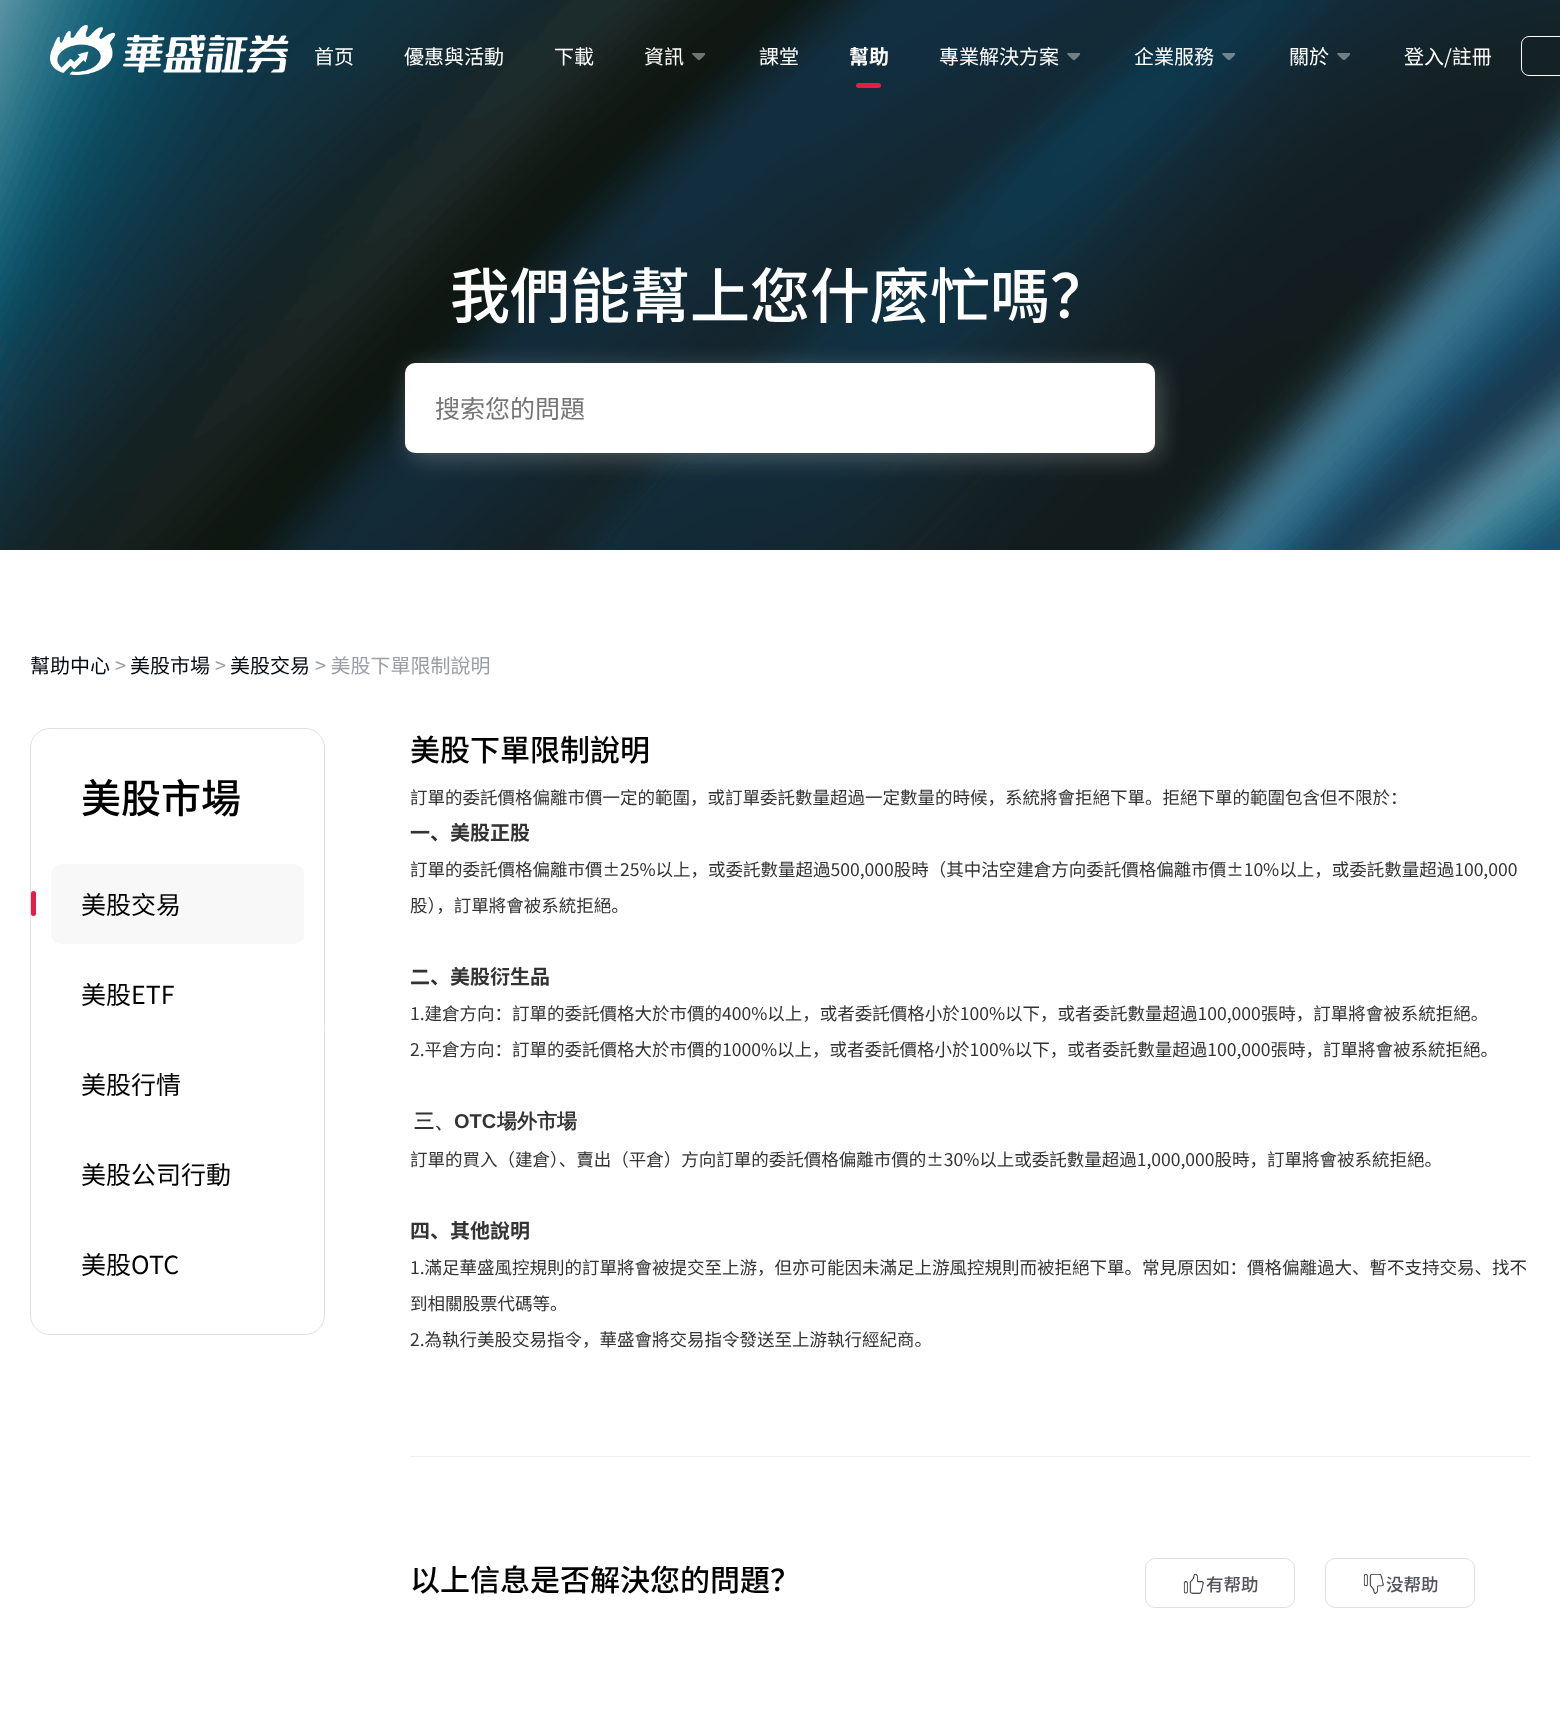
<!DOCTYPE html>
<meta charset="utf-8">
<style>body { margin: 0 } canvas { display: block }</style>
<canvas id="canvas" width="1560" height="1726"></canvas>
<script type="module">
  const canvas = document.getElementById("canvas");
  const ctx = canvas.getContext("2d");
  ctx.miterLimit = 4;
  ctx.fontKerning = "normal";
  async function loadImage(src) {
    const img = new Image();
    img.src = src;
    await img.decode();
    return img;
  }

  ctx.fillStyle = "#ffffff";
  ctx.fillRect(0, 0, 1560, 1726);
  ctx.drawImage(await loadImage("img2.png"), 0, 0, 1560, 550);
  ctx.drawImage(await loadImage("img1.png"), 50, 25, 239, 50);
  ctx.font = "20px Noto Sans CJK SC";
  ctx.fillText("首页", 314, 64);
  ctx.fillText("優惠與活動", 404, 64);
  ctx.fillText("下載", 554, 64);
  ctx.fillText("資訊", 644, 64);
  ctx.save();
  ctx.beginPath();
  ctx.rect(689, 53, 20, 10);
  ctx.clip();
  ctx.fillStyle = "#707471";
  ctx.beginPath();
  ctx.moveTo(699.5, 47.5);
  ctx.lineTo(704, 52);
  ctx.bezierCurveTo(706.5, 54.5, 704.5, 55, 702.5, 57.5);
  ctx.bezierCurveTo(700, 59.5, 699.5, 61.5, 697, 59);
  ctx.lineTo(692.5, 54.5);
  ctx.bezierCurveTo(691, 53, 694.5, 51, 695.5, 50);
  ctx.bezierCurveTo(696, 49.5, 698.5, 46, 699.5, 47.5);
  ctx.closePath();
  ctx.fill();
  ctx.restore();
  ctx.fillText("課堂", 759, 64);
  ctx.font = "bold 20px Noto Sans CJK SC";
  ctx.fillText("幫助", 849, 64);
  ctx.fillStyle = "#e61b46";
  ctx.beginPath();
  ctx.roundRect(856, 83, 25, 5, 2.5);
  ctx.fill();
  ctx.font = "20px Noto Sans CJK SC";
  ctx.fillStyle = "#ffffff";
  ctx.fillText("專業解決方案", 939, 64);
  ctx.save();
  ctx.beginPath();
  ctx.rect(1064, 53, 20, 10);
  ctx.clip();
  ctx.fillStyle = "#717f87";
  ctx.beginPath();
  ctx.moveTo(1075, 47.5);
  ctx.lineTo(1079, 52);
  ctx.bezierCurveTo(1081.5, 54.5, 1079.5, 55, 1077.5, 57.5);
  ctx.bezierCurveTo(1075, 59.5, 1074.5, 61.5, 1072, 59);
  ctx.lineTo(1067.5, 54.5);
  ctx.bezierCurveTo(1066.5, 53, 1069.5, 51, 1070.5, 50);
  ctx.bezierCurveTo(1071, 49.5, 1073.5, 46, 1075, 47.5);
  ctx.closePath();
  ctx.fill();
  ctx.restore();
  ctx.fillText("企業服務", 1134, 64);
  ctx.save();
  ctx.beginPath();
  ctx.rect(1219, 53, 20, 10);
  ctx.clip();
  ctx.fillStyle = "rgba(255, 255, 255, 0.4)";
  ctx.beginPath();
  ctx.moveTo(1230, 47.5);
  ctx.lineTo(1234, 52);
  ctx.bezierCurveTo(1236.5, 54.5, 1234.5, 55, 1232.5, 57.5);
  ctx.bezierCurveTo(1230, 59.5, 1229.5, 61.5, 1227, 59);
  ctx.lineTo(1222.5, 54.5);
  ctx.bezierCurveTo(1221.5, 53, 1224.5, 51, 1225.5, 50);
  ctx.bezierCurveTo(1226, 49.5, 1228.5, 46, 1230, 47.5);
  ctx.closePath();
  ctx.fill();
  ctx.restore();
  ctx.fillText("關於", 1289, 64);
  ctx.save();
  ctx.beginPath();
  ctx.rect(1334, 53, 20, 10);
  ctx.clip();
  ctx.fillStyle = "#717e84";
  ctx.beginPath();
  ctx.moveTo(1345, 47.5);
  ctx.lineTo(1349, 52);
  ctx.bezierCurveTo(1351.5, 54.5, 1349.5, 55, 1347.5, 57.5);
  ctx.bezierCurveTo(1345, 59.5, 1344.5, 61.5, 1342, 59);
  ctx.lineTo(1337.5, 54.5);
  ctx.bezierCurveTo(1336.5, 53, 1339.5, 51, 1340.5, 50);
  ctx.bezierCurveTo(1341, 49.5, 1343.5, 46, 1345, 47.5);
  ctx.closePath();
  ctx.fill();
  ctx.restore();
  ctx.fillText("登入/註冊", 1404, 64);
  ctx.beginPath();
  ctx.roundRect(1521.5, 36.5, 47, 39, 7.5);
  ctx.strokeStyle = "#ffffff";
  ctx.stroke();
  ctx.font = "500 60px Noto Sans CJK SC";
  ctx.fillText("我們能幫上您什麼忙嗎？", 450, 318);
  ctx.fillStyle = "rgba(255, 255, 255, 0.24)";
  ctx.filter = "blur(12.5px)";
  ctx.beginPath();
  ctx.roundRect(410, 368, 750, 90, 10);
  ctx.fill();
  ctx.filter = "none";
  ctx.fillStyle = "#ffffff";
  ctx.beginPath();
  ctx.roundRect(405, 363, 750, 90, 10);
  ctx.fill();
  ctx.font = "25px Noto Sans CJK SC";
  ctx.fillStyle = "#757575";
  ctx.fillText("搜索您的問題", 435, 418);
  ctx.font = "20px Noto Sans CJK SC";
  ctx.fillStyle = "#030810";
  ctx.fillText("幫助中心", 30, 673);
  ctx.fillStyle = "#9b9ea3";
  ctx.fillText(">", 115, 673);
  ctx.fillStyle = "#030810";
  ctx.fillText("美股市場", 130, 673);
  ctx.fillStyle = "#9b9ea3";
  ctx.fillText(">", 215, 673);
  ctx.fillStyle = "#030810";
  ctx.fillText("美股交易", 230, 673);
  ctx.fillStyle = "#9b9ea3";
  ctx.fillText("> 美股下單限制說明", 315, 673);
  ctx.beginPath();
  ctx.roundRect(30.5, 728.5, 294, 606, 19.5);
  ctx.strokeStyle = "#e0e1e3";
  ctx.stroke();
  ctx.font = "500 40px Noto Sans CJK SC";
  ctx.fillStyle = "#000000";
  ctx.fillText("美股市場", 81, 813);
  ctx.fillStyle = "#f8f8f9";
  ctx.beginPath();
  ctx.roundRect(51, 864, 253, 80, 10);
  ctx.fill();
  ctx.fillStyle = "#e61b46";
  ctx.beginPath();
  ctx.roundRect(31, 891, 5, 25, 2.5);
  ctx.fill();
  ctx.font = "25px Noto Sans CJK SC";
  ctx.fillStyle = "#000000";
  ctx.fillText("美股交易", 81, 914);
  ctx.fillText("美股ETF", 81, 1004);
  ctx.fillText("美股行情", 81, 1094);
  ctx.fillText("美股公司行動", 81, 1184);
  ctx.fillText("美股OTC", 81, 1274);
  ctx.font = "500 30px Noto Sans CJK SC";
  ctx.fillText("美股下單限制說明", 410, 761);
  ctx.font = "17.5px Noto Sans CJK SC";
  ctx.fillStyle = "#333333";
  ctx.fillText("訂單的委託價格偏離市價一定的範圍，或訂單委託數量超過一定數量的時候，系統將會拒絕下單。拒絕下單的範圍包含但不限於：", 410, 804);
  ctx.font = "bold 20px Noto Sans CJK SC";
  ctx.fillText("一、美股正股", 410, 840);
  ctx.font = "17.5px Noto Sans CJK SC";
  ctx.fillText("訂單的委託價格偏離市價±25%以上，或委託數量超過500,000股時（其中沽空建倉方向委託價格偏離市價±10%以上，或委託數量超過100,000", 410, 876);
  ctx.fillText("股），訂單將會被系統拒絕。", 410, 912);
  ctx.font = "bold 20px Noto Sans CJK SC";
  ctx.fillText("二、美股衍生品", 410, 984);
  ctx.font = "17.5px Noto Sans CJK SC";
  ctx.fillText("1.建倉方向：訂單的委託價格大於市價的400%以上，或者委託價格小於100%以下，或者委託數量超過100,000張時，訂單將會被系統拒絕。", 410, 1020);
  ctx.fillText("2.平倉方向：訂單的委託價格大於市價的1000%以上，或者委託價格小於100%以下，或者委託數量超過100,000張時，訂單將會被系統拒絕。", 410, 1056);
  ctx.font = "bold 20px WenQuanYi Zen Hei";
  ctx.fillText("三、", 414, 1128);
  ctx.font = "bold 20px Liberation Sans";
  ctx.fillText("OTC", 454, 1128);
  ctx.font = "bold 20px WenQuanYi Zen Hei";
  ctx.fillText("場外市場", 497, 1128);
  ctx.font = "17.5px Noto Sans CJK SC";
  ctx.fillText("訂單的買入（建倉）、賣出（平倉）方向訂單的委託價格偏離市價的±30%以上或委託數量超過1,000,000股時，訂單將會被系統拒絕。", 410, 1166);
  ctx.font = "bold 20px Noto Sans CJK SC";
  ctx.fillText("四、其他說明", 410, 1238);
  ctx.font = "17.5px Noto Sans CJK SC";
  ctx.fillText("1.滿足華盛風控規則的訂單將會被提交至上游，但亦可能因未滿足上游風控規則而被拒絕下單。常見原因如：價格偏離過大、暫不支持交易、找不", 410, 1274);
  ctx.fillText("到相關股票代碼等。", 410, 1310);
  ctx.fillText("2.為執行美股交易指令，華盛會將交易指令發送至上游執行經紀商。", 410, 1346);
  ctx.fillStyle = "#eceef2";
  ctx.fillRect(410, 1456, 1120, 1);
  ctx.font = "500 30px Noto Sans CJK SC";
  ctx.fillStyle = "#000000";
  ctx.fillText("以上信息是否解決您的問題？", 410, 1591);
  ctx.beginPath();
  ctx.roundRect(1145.5, 1558.5, 149, 49, 9.5);
  ctx.strokeStyle = "#e0e0e0";
  ctx.stroke();
  ctx.drawImage(await loadImage("img3.png"), 1183, 1573, 21, 21);
  ctx.font = "500 17.5px Noto Sans CJK SC";
  ctx.fillStyle = "#4f545e";
  ctx.fillText("有帮助", 1206, 1591);
  ctx.beginPath();
  ctx.roundRect(1325.5, 1558.5, 149, 49, 9.5);
  ctx.stroke();
  ctx.drawImage(await loadImage("img4.png"), 1363, 1573, 21, 21);
  ctx.fillText("没帮助", 1386, 1591);
</script>
